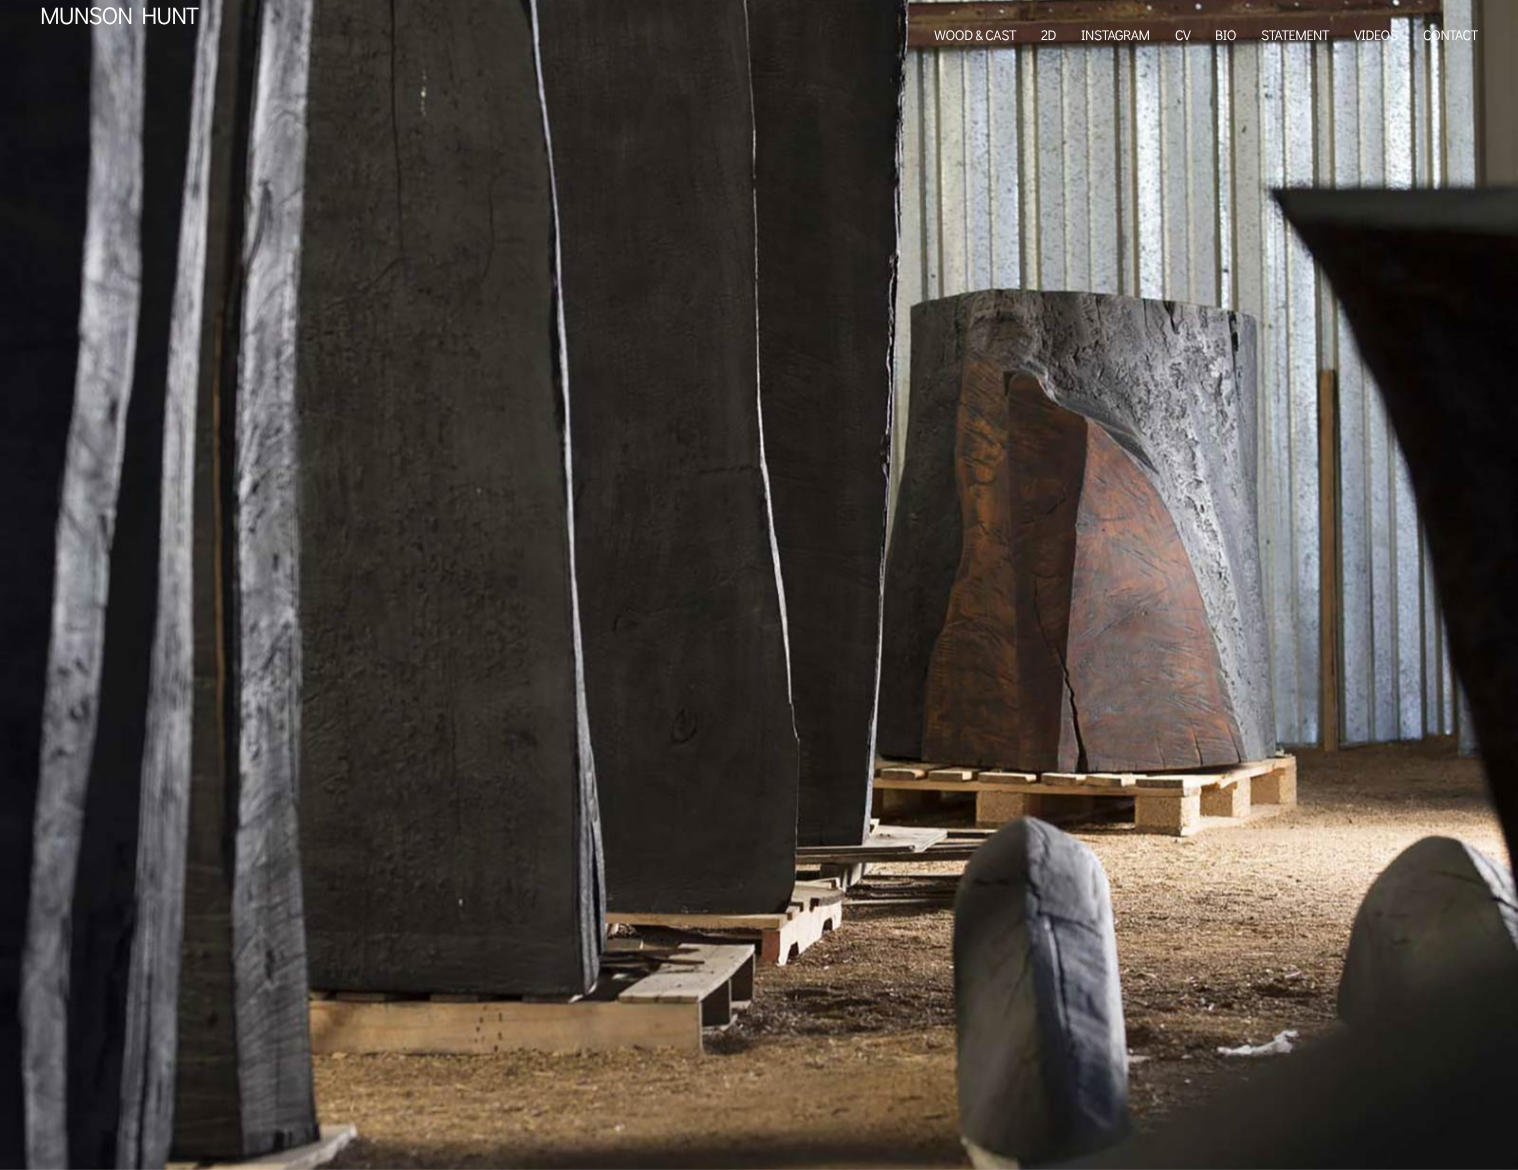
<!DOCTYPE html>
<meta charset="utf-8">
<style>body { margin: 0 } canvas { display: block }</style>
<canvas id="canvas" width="1518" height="1170"></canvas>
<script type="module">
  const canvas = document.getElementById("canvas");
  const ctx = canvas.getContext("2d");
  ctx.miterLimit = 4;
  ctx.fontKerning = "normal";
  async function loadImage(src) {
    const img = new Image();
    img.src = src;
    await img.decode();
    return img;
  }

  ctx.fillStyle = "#ffffff";
  ctx.fillRect(0, 0, 1518, 1170);
  ctx.drawImage(await loadImage("img1.png"), 0, 0, 1518, 1170);
  ctx.letterSpacing = "-1px";
  ctx.font = "24px Didact Gothic";
  ctx.fillText("MUNSON HUNT", 40, 24);
  ctx.letterSpacing = "-0.4px";
  ctx.font = "14px Didact Gothic";
  ctx.fillText("WOOD & CAST", 934, 40);
  ctx.fillText("2D", 1041, 40);
  ctx.fillText("INSTAGRAM", 1081, 40);
  ctx.fillText("CV", 1175, 40);
  ctx.fillText("BIO", 1215, 40);
  ctx.fillText("STATEMENT", 1261, 40);
  ctx.fillText("VIDEOS", 1354, 40);
  ctx.fillText("CONTACT", 1423, 40);
</script>
